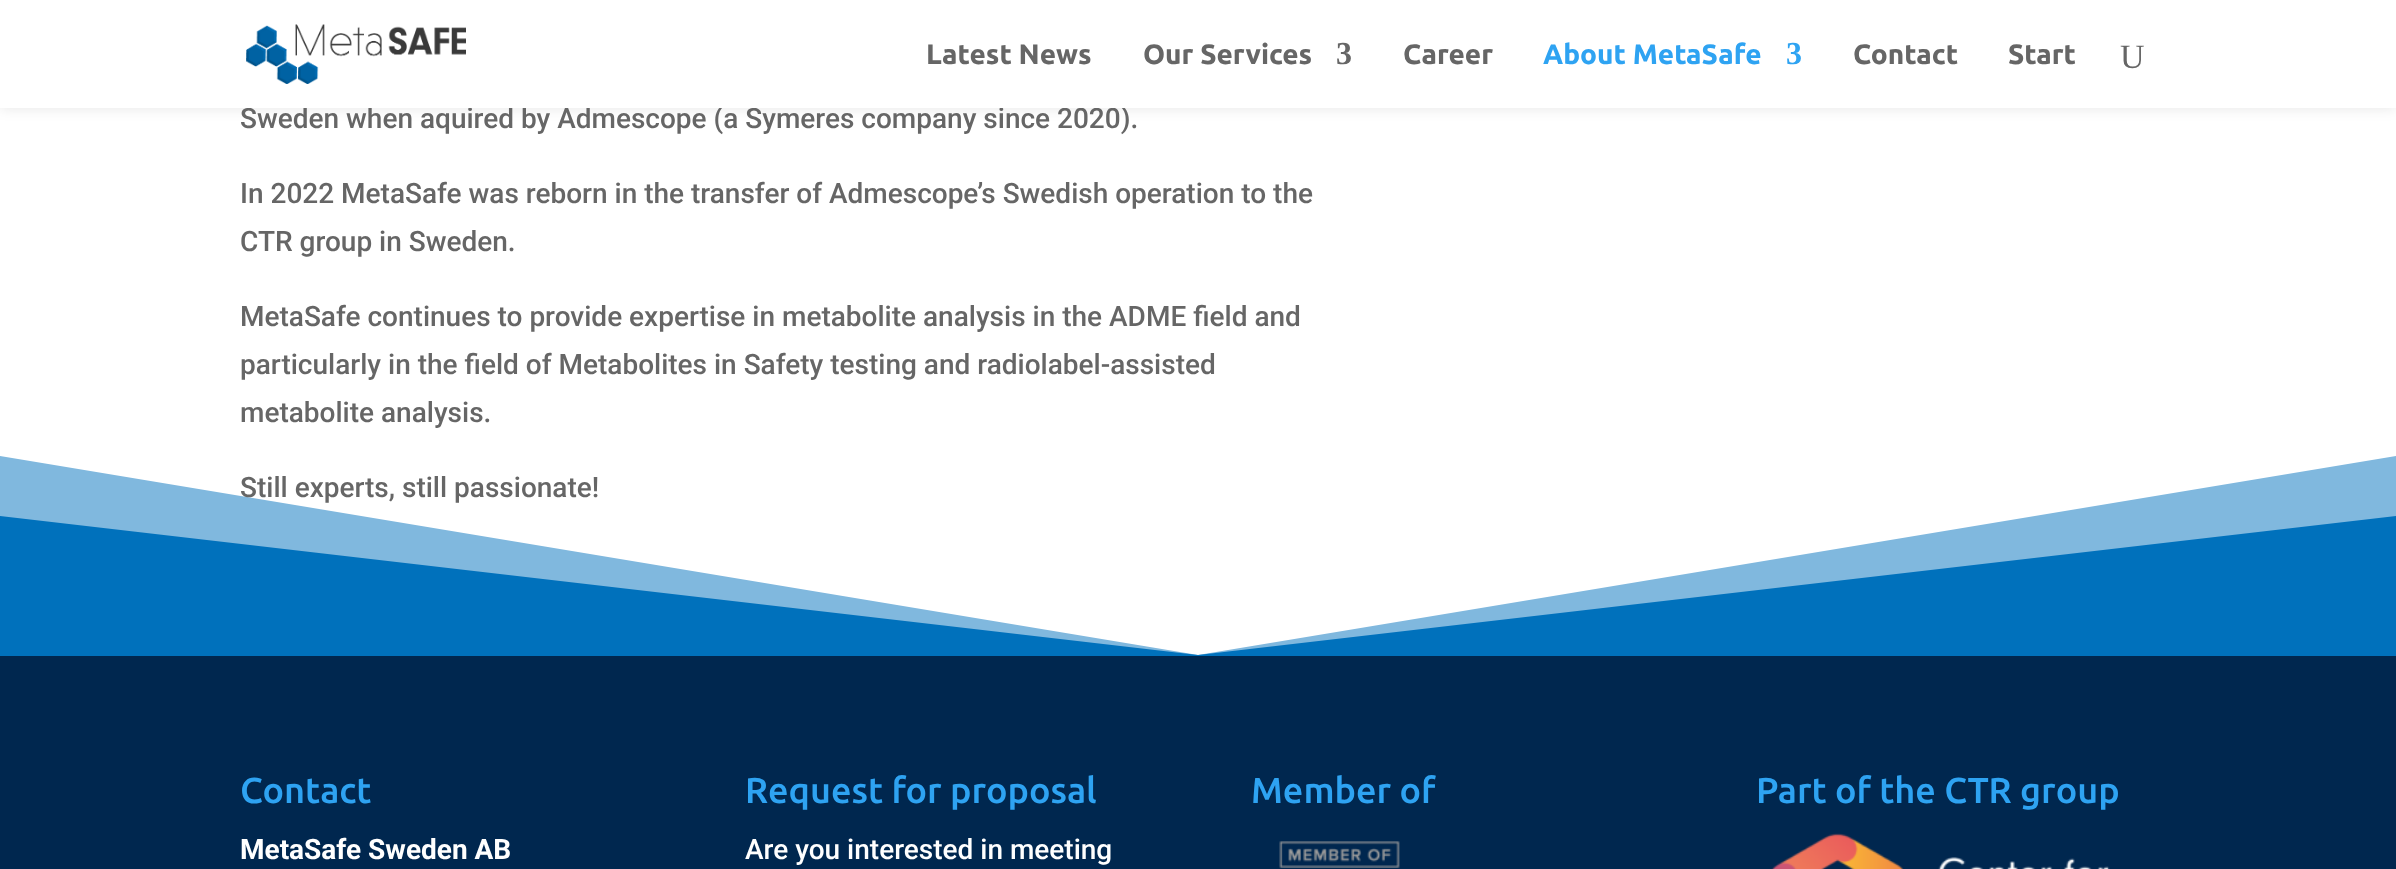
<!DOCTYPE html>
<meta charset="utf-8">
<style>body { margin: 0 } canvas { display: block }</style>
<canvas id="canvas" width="2396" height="869"></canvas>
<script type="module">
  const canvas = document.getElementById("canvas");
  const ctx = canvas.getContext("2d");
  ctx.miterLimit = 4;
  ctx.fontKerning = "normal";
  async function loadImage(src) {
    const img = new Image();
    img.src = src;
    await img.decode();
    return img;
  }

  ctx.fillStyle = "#ffffff";
  ctx.fillRect(0, 0, 2396, 869);
  ctx.fillStyle = "rgba(0, 0, 0, 0.1)";
  ctx.filter = "blur(7px)";
  ctx.beginPath();
  ctx.rect(0, 0, 2396, 108);
  ctx.fill();
  ctx.filter = "none";
  ctx.font = "500 28px Roboto";
  ctx.fillStyle = "#666666";
  ctx.fillText("Sweden when aquired by Admescope (a Symeres company since 2020).", 240, 128);
  ctx.fillStyle = "#ffffff";
  ctx.fillRect(0, 0, 2396, 108);
  ctx.drawImage(await loadImage("img1.png"), 246, 24, 220, 60);
  ctx.font = "bold 28px Ubuntu";
  ctx.fillStyle = "#666666";
  ctx.fillText("Latest News", 926, 64);
  ctx.fillText("Our Services", 1143, 64);
  ctx.font = "bold 32px Liberation Serif";
  ctx.fillText("3", 1336, 64);
  ctx.font = "bold 28px Ubuntu";
  ctx.fillText("Career", 1403, 64);
  ctx.fillStyle = "#2ea3f2";
  ctx.fillText("About MetaSafe", 1543, 64);
  ctx.font = "bold 32px Liberation Serif";
  ctx.fillText("3", 1786, 64);
  ctx.font = "bold 28px Ubuntu";
  ctx.fillStyle = "#666666";
  ctx.fillText("Contact", 1853, 64);
  ctx.fillText("Start", 2008, 64);
  ctx.font = "34px Liberation Serif";
  ctx.fillText("U", 2120, 68);
  ctx.font = "500 28px Roboto";
  ctx.fillText("In 2022 MetaSafe was reborn in the transfer of Admescope’s Swedish operation to the", 240, 203);
  ctx.fillText("CTR group in Sweden.", 240, 251);
  ctx.fillText("MetaSafe continues to provide expertise in metabolite analysis in the ADME field and", 240, 326);
  ctx.fillText("particularly in the field of Metabolites in Safety testing and radiolabel-assisted", 240, 374);
  ctx.fillText("metabolite analysis.", 240, 422);
  ctx.fillStyle = "#80b8de";
  ctx.beginPath();
  ctx.moveTo(1198, 655);
  ctx.lineTo(0, 456);
  ctx.lineTo(0, 656);
  ctx.lineTo(2396, 656);
  ctx.lineTo(2396, 456);
  ctx.closePath();
  ctx.fill();
  ctx.fillStyle = "#666666";
  ctx.fillText("Still experts, still passionate!", 240, 497);
  ctx.fillStyle = "#0071bc";
  ctx.beginPath();
  ctx.moveTo(1198, 655);
  ctx.lineTo(0, 516);
  ctx.lineTo(0, 656);
  ctx.lineTo(2396, 656);
  ctx.lineTo(2396, 516);
  ctx.closePath();
  ctx.fill();
  ctx.fillStyle = "#00274f";
  ctx.fillRect(0, 656, 2396, 213);
  ctx.font = "500 36px Ubuntu";
  ctx.fillStyle = "#2ea3f2";
  ctx.fillText("Contact", 240, 803);
  ctx.font = "bold 28px Roboto";
  ctx.fillStyle = "#ffffff";
  ctx.fillText("MetaSafe Sweden AB", 240, 859);
  ctx.font = "500 36px Ubuntu";
  ctx.fillStyle = "#2ea3f2";
  ctx.fillText("Request for proposal", 745, 803);
  ctx.font = "500 28px Roboto";
  ctx.fillStyle = "#ffffff";
  ctx.fillText("Are you interested in meeting", 745, 859);
  ctx.font = "500 36px Ubuntu";
  ctx.fillStyle = "#2ea3f2";
  ctx.fillText("Member of", 1251, 803);
  ctx.drawImage(await loadImage("img2.png"), 1279, 841, 121, 27);
  ctx.fillText("Part of the CTR group", 1756, 803);
  ctx.drawImage(await loadImage("img3.png"), 1771, 833, 339, 36);
</script>
